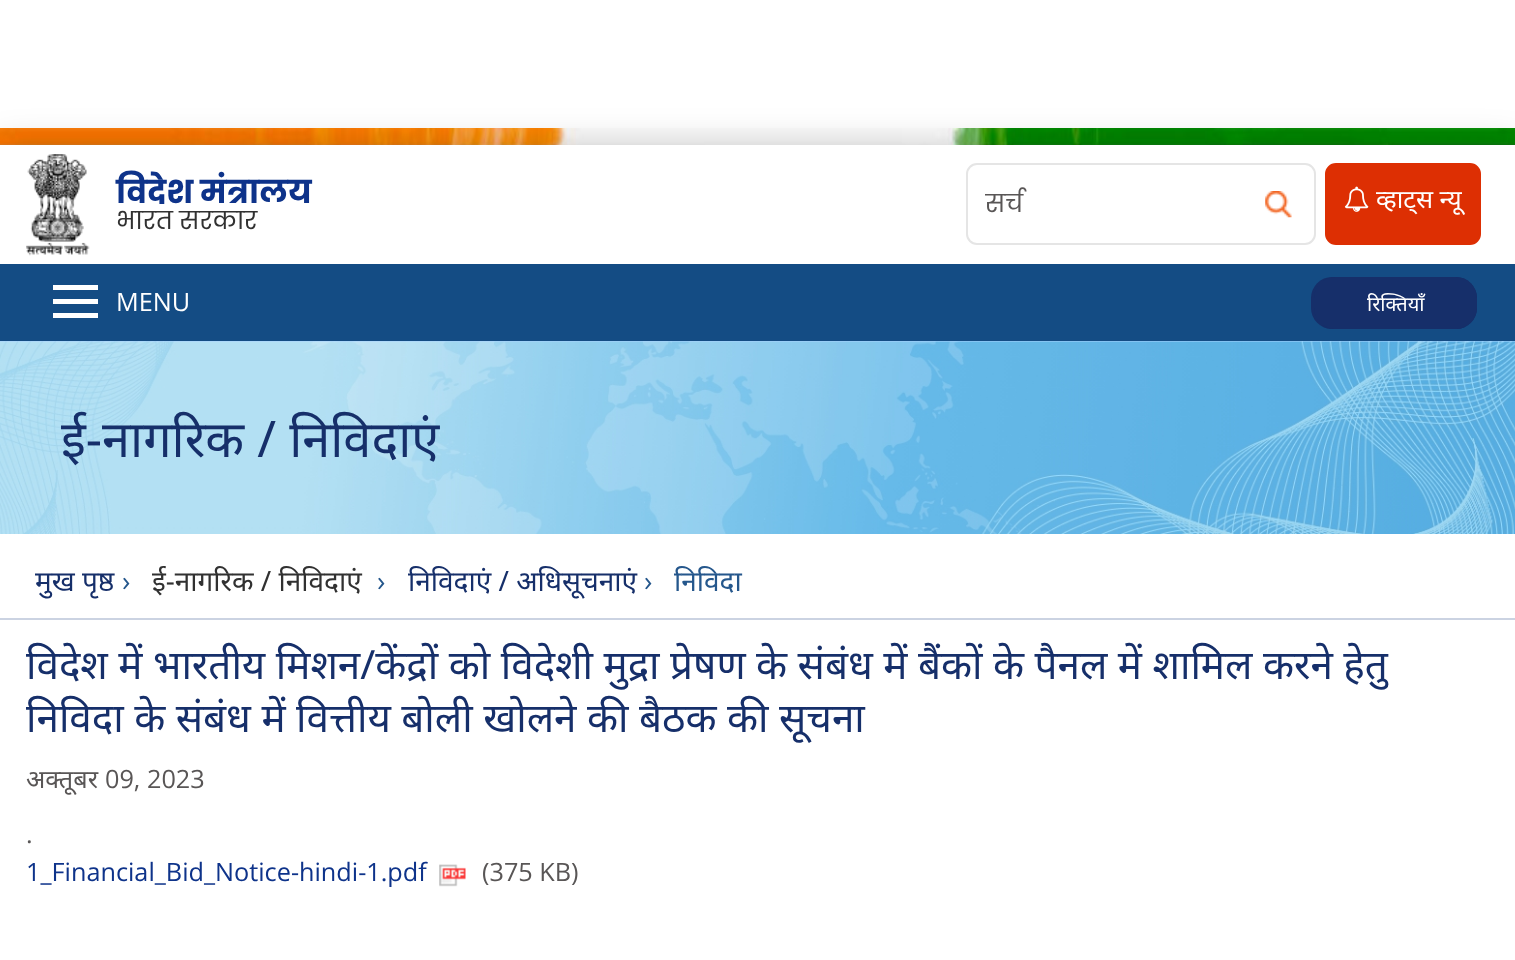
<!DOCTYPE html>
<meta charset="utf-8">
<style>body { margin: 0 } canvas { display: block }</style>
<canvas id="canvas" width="1515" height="960"></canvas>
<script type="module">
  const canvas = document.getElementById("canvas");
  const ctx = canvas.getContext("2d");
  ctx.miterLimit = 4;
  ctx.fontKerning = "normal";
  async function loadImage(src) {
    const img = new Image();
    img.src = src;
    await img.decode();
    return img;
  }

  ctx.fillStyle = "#ffffff";
  ctx.fillRect(0, 0, 1515, 960);
  ctx.drawImage(await loadImage("img1.png"), 0, 128, 1515, 17);
  ctx.fillStyle = "rgba(0, 0, 0, 0.2)";
  ctx.filter = "blur(17.5px)";
  ctx.beginPath();
  ctx.rect(0, 145, 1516, 196);
  ctx.fill();
  ctx.filter = "none";
  ctx.fillStyle = "#ffffff";
  ctx.fillRect(0, 145, 1515, 119);
  ctx.drawImage(await loadImage("img2.png"), 26, 154, 64, 102);
  ctx.font = "bold 31.5px Poppins";
  ctx.fillStyle = "#0e338a";
  ctx.fillText("विदेश मंत्रालय", 116, 203);
  ctx.font = "24.5px Poppins";
  ctx.fillStyle = "#313131";
  ctx.fillText("भारत सरकार", 116, 229);
  ctx.beginPath();
  ctx.roundRect(967, 164, 348, 80, 10);
  ctx.strokeStyle = "#e5e5e5";
  ctx.lineWidth = 2;
  ctx.stroke();
  ctx.save();
  ctx.beginPath();
  ctx.rect(985, 186, 251, 36);
  ctx.clip();
  ctx.fillStyle = "#595656";
  ctx.fillText("सर्च", 985, 212);
  ctx.restore();
  ctx.drawImage(await loadImage("img3.png"), 1265, 191, 27, 27);
  ctx.fillStyle = "#dd2f03";
  ctx.beginPath();
  ctx.roundRect(1326, 164, 154, 80, 10);
  ctx.fill();
  ctx.strokeStyle = "#dd2f03";
  ctx.stroke();
  ctx.drawImage(await loadImage("img4.png"), 1344, 186, 25, 26);
  ctx.font = "25.25px Noto Sans";
  ctx.fillStyle = "#ffffff";
  ctx.fillText("व्हाट्स न्यू", 1376, 208);
  ctx.fillStyle = "#144c84";
  ctx.fillRect(0, 264, 1515, 77);
  ctx.fillStyle = "#162f6a";
  ctx.beginPath();
  ctx.roundRect(1311, 277, 166, 52, 21);
  ctx.fill();
  ctx.fillStyle = "#ffffff";
  ctx.fillRect(53, 299, 45, 5);
  ctx.fillRect(53, 285, 45, 5);
  ctx.fillRect(53, 313, 45, 5);
  ctx.font = "25.25px Open Sans";
  ctx.fillText("MENU", 116, 311);
  ctx.fillStyle = "#162f6a";
  ctx.beginPath();
  ctx.roundRect(1314, 277, 163, 52, 21);
  ctx.fill();
  ctx.font = "20px Noto Sans";
  ctx.fillStyle = "#ffffff";
  ctx.fillText("रिक्तियाँ", 1367, 311);
  ctx.fillStyle = "#a6d1ff";
  ctx.fillRect(0, 341, 1515, 1);
  ctx.drawImage(await loadImage("img5.png"), 0, 341, 1515, 193);
  ctx.font = "50.5px Noto Sans";
  ctx.fillStyle = "#162f6a";
  ctx.fillText("ई-नागरिक / निविदाएं", 61, 457);
  ctx.fillStyle = "#cbd3e2";
  ctx.fillRect(0, 618, 1515, 2);
  ctx.font = "28px Noto Sans";
  ctx.fillStyle = "#162f6a";
  ctx.fillText("मुख पृष्ठ", 35, 591);
  ctx.font = "28px Open Sans";
  ctx.fillStyle = "#25578c";
  ctx.fillText("›", 122, 591);
  ctx.font = "28px Noto Sans";
  ctx.fillStyle = "#313131";
  ctx.fillText("ई-नागरिक / निविदाएं", 152, 591);
  ctx.font = "28px Open Sans";
  ctx.fillStyle = "#25578c";
  ctx.fillText("›", 377, 591);
  ctx.font = "28px Noto Sans";
  ctx.fillStyle = "#162f6a";
  ctx.fillText("निविदाएं / अधिसूचनाएं", 408, 591);
  ctx.font = "28px Open Sans";
  ctx.fillStyle = "#25578c";
  ctx.fillText("›", 644, 591);
  ctx.font = "28px Noto Sans";
  ctx.fillText("निविदा", 674, 591);
  ctx.font = "40.4px Noto Sans";
  ctx.fillStyle = "#162f6a";
  ctx.fillText("विदेश में भारतीय मिशन/केंद्रों को विदेशी मुद्रा प्रेषण के संबंध में बैंकों के पैनल में शामिल करने हेतु", 26, 679);
  ctx.fillText("निविदा के संबंध में वित्तीय बोली खोलने की बैठक की सूचना", 26, 732);
  ctx.font = "25.25px Noto Sans";
  ctx.fillStyle = "#595656";
  ctx.fillText("अक्तूबर", 26, 788);
  ctx.font = "25.25px Open Sans";
  ctx.fillText("09, 2023", 105, 788);
  ctx.fillText(".", 26, 843);
  ctx.fillStyle = "#0e338a";
  ctx.fillText("1_Financial_Bid_Notice-hindi-1.pdf", 26, 881);
  ctx.drawImage(await loadImage("img6.png"), 439, 864, 27, 23);
  ctx.fillStyle = "#595656";
  ctx.fillText("(375 KB)", 482, 881);
</script>
